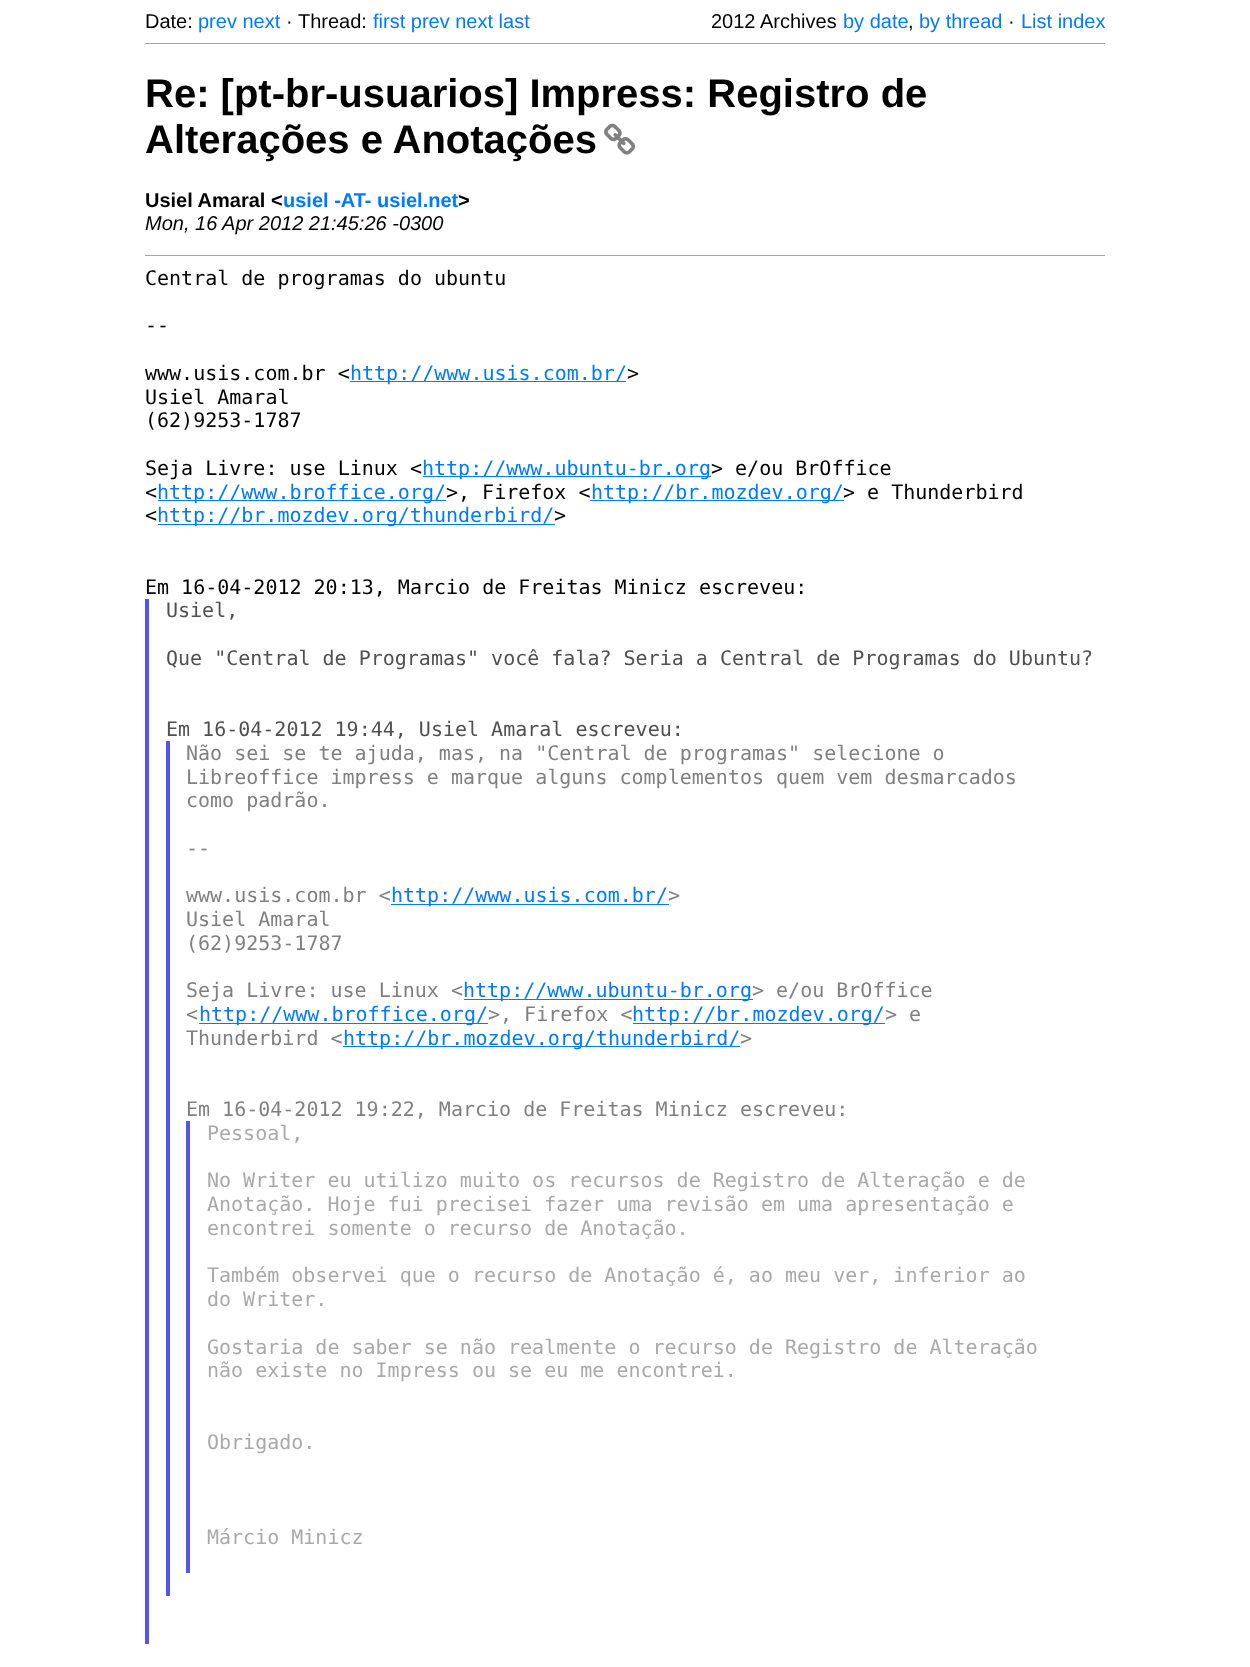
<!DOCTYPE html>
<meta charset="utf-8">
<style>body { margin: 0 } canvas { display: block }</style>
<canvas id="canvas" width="1250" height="1667"></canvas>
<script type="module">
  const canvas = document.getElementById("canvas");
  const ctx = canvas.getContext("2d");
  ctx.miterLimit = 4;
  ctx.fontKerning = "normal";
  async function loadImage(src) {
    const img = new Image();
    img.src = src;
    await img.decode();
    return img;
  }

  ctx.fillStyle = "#ffffff";
  ctx.fillRect(0, 0, 1250, 1667);
  ctx.font = "20px Liberation Sans";
  ctx.fillStyle = "#000000";
  ctx.fillText("Date:", 145, 28);
  ctx.fillStyle = "#007bff";
  ctx.fillText("prev next", 198, 28);
  ctx.fillStyle = "#000000";
  ctx.fillText("·", 286, 28);
  ctx.fillText("Thread:", 298, 28);
  ctx.fillStyle = "#007bff";
  ctx.fillText("first prev next last", 373, 28);
  ctx.fillStyle = "#000000";
  ctx.fillText("2012 Archives", 711, 28);
  ctx.fillStyle = "#007bff";
  ctx.fillText("by date", 843, 28);
  ctx.fillText("by thread", 919, 28);
  ctx.fillStyle = "#000000";
  ctx.fillText("·", 1008, 28);
  ctx.fillStyle = "#007bff";
  ctx.fillText("List index", 1021, 28);
  ctx.fillStyle = "#000000";
  ctx.fillText(",", 908, 28);
  ctx.fillStyle = "#a6a6a6";
  ctx.fillRect(145, 43, 960, 1);
  ctx.font = "bold 40px Liberation Sans";
  ctx.fillStyle = "#000000";
  ctx.fillText("Re: [pt-br-usuarios] Impress: Registro de", 145, 107);
  ctx.fillText("Alterações e Anotações", 145, 153);
  ctx.drawImage(await loadImage("img1.png"), 604, 123, 31, 32);
  ctx.font = "bold 20px Liberation Sans";
  ctx.fillText("Usiel Amaral <", 145, 207);
  ctx.fillStyle = "#007bff";
  ctx.fillText("usiel -AT- usiel.net", 283, 207);
  ctx.fillStyle = "#000000";
  ctx.fillText(">", 458, 207);
  ctx.font = "italic 20px Liberation Sans";
  ctx.fillText("Mon, 16 Apr 2012 21:45:26 -0300", 145, 230);
  ctx.fillStyle = "#a6a6a6";
  ctx.fillRect(145, 255, 960, 1);
  ctx.font = "20px DejaVu Sans Mono";
  ctx.fillStyle = "#000000";
  ctx.fillText("Central de programas do ubuntu", 145, 285);
  ctx.fillText("--", 145, 332);
  ctx.fillText("www.usis.com.br <", 145, 380);
  ctx.fillStyle = "#007bff";
  ctx.fillRect(350, 381, 276, 1);
  ctx.fillText("http://www.usis.com.br/", 350, 380);
  ctx.fillStyle = "#000000";
  ctx.fillText(">", 627, 380);
  ctx.fillText("Usiel Amaral", 145, 404);
  ctx.fillText("(62)9253-1787", 145, 427);
  ctx.fillText("Seja Livre: use Linux <", 145, 475);
  ctx.fillStyle = "#007bff";
  ctx.fillRect(423, 476, 288, 1);
  ctx.fillText("http://www.ubuntu-br.org", 422, 475);
  ctx.fillStyle = "#000000";
  ctx.fillText("> e/ou BrOffice", 711, 475);
  ctx.fillText("<", 145, 499);
  ctx.fillStyle = "#007bff";
  ctx.fillRect(158, 500, 288, 1);
  ctx.fillText("http://www.broffice.org/", 157, 499);
  ctx.fillStyle = "#000000";
  ctx.fillText(">, Firefox <", 446, 499);
  ctx.fillStyle = "#007bff";
  ctx.fillRect(590, 500, 254, 1);
  ctx.fillText("http://br.mozdev.org/", 591, 499);
  ctx.fillStyle = "#000000";
  ctx.fillText("> e Thunderbird", 843, 499);
  ctx.fillText("<", 145, 522);
  ctx.fillStyle = "#007bff";
  ctx.fillRect(158, 524, 397, 1);
  ctx.fillText("http://br.mozdev.org/thunderbird/", 157, 522);
  ctx.fillStyle = "#000000";
  ctx.fillText(">", 554, 522);
  ctx.fillText("Em 16-04-2012 20:13, Marcio de Freitas Minicz escreveu:", 145, 594);
  ctx.fillStyle = "#5555ee";
  ctx.fillRect(145, 599, 4, 1045);
  ctx.fillStyle = "#505050";
  ctx.fillText("Usiel,", 166, 617);
  ctx.fillText("Que \"Central de Programas\" você fala? Seria a Central de Programas do Ubuntu?", 166, 665);
  ctx.fillText("Em 16-04-2012 19:44, Usiel Amaral escreveu:", 166, 736);
  ctx.fillStyle = "#5555ee";
  ctx.fillRect(166, 741, 4, 855);
  ctx.fillStyle = "#808080";
  ctx.fillText("Não sei se te ajuda, mas, na \"Central de programas\" selecione o", 186, 760);
  ctx.fillText("Libreoffice impress e marque alguns complementos quem vem desmarcados", 186, 784);
  ctx.fillText("como padrão.", 186, 807);
  ctx.fillText("--", 186, 855);
  ctx.fillText("www.usis.com.br <", 186, 902);
  ctx.fillStyle = "#007bff";
  ctx.fillRect(391, 904, 278, 1);
  ctx.fillText("http://www.usis.com.br/", 391, 902);
  ctx.fillStyle = "#808080";
  ctx.fillText(">", 668, 902);
  ctx.fillText("Usiel Amaral", 186, 926);
  ctx.fillText("(62)9253-1787", 186, 950);
  ctx.fillText("Seja Livre: use Linux <", 186, 997);
  ctx.fillStyle = "#007bff";
  ctx.fillRect(464, 999, 289, 1);
  ctx.fillText("http://www.ubuntu-br.org", 463, 997);
  ctx.fillStyle = "#808080";
  ctx.fillText("> e/ou BrOffice", 752, 997);
  ctx.fillText("<", 186, 1021);
  ctx.fillStyle = "#007bff";
  ctx.fillRect(199, 1023, 289, 1);
  ctx.fillText("http://www.broffice.org/", 199, 1021);
  ctx.fillStyle = "#808080";
  ctx.fillText(">, Firefox <", 488, 1021);
  ctx.fillStyle = "#007bff";
  ctx.fillRect(633, 1023, 252, 1);
  ctx.fillText("http://br.mozdev.org/", 632, 1021);
  ctx.fillStyle = "#808080";
  ctx.fillText("> e", 885, 1021);
  ctx.fillText("Thunderbird <", 186, 1045);
  ctx.fillStyle = "#007bff";
  ctx.fillRect(343, 1046, 397, 1);
  ctx.fillText("http://br.mozdev.org/thunderbird/", 343, 1045);
  ctx.fillStyle = "#808080";
  ctx.fillText(">", 740, 1045);
  ctx.fillText("Em 16-04-2012 19:22, Marcio de Freitas Minicz escreveu:", 186, 1116);
  ctx.fillStyle = "#5555ee";
  ctx.fillRect(186, 1121, 4, 452);
  ctx.fillStyle = "#a9a9a9";
  ctx.fillText("Pessoal,", 207, 1140);
  ctx.fillText("No Writer eu utilizo muito os recursos de Registro de Alteração e de", 207, 1187);
  ctx.fillText("Anotação. Hoje fui precisei fazer uma revisão em uma apresentação e", 207, 1211);
  ctx.fillText("encontrei somente o recurso de Anotação.", 207, 1235);
  ctx.fillText("Também observei que o recurso de Anotação é, ao meu ver, inferior ao", 207, 1282);
  ctx.fillText("do Writer.", 207, 1306);
  ctx.fillText("Gostaria de saber se não realmente o recurso de Registro de Alteração", 207, 1354);
  ctx.fillText("não existe no Impress ou se eu me encontrei.", 207, 1377);
  ctx.fillText("Obrigado.", 207, 1449);
  ctx.fillText("Márcio Minicz", 207, 1544);
</script>
